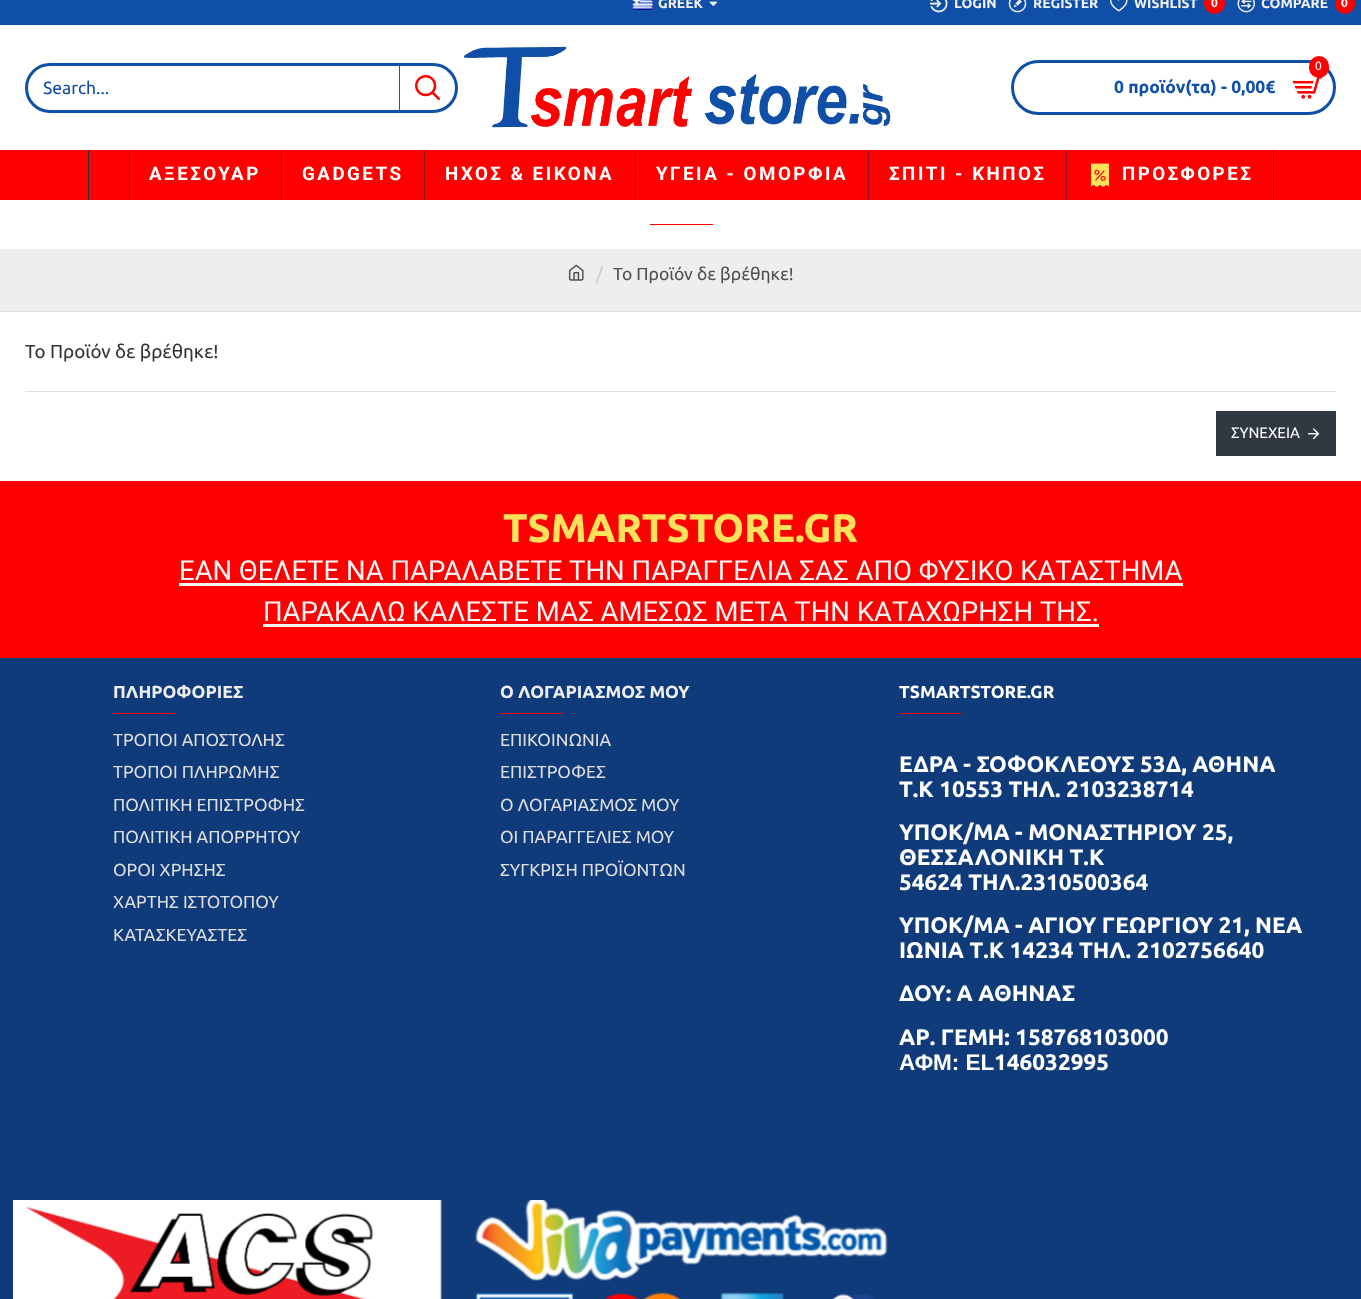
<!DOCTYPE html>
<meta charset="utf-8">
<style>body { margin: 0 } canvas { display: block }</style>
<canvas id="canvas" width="1361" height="1299"></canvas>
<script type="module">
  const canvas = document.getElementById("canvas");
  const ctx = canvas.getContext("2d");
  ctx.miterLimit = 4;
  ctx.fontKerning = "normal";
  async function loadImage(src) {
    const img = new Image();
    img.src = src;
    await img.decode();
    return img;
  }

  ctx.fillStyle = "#ffffff";
  ctx.fillRect(0, 0, 1361, 1299);
  ctx.fillStyle = "#0f4fa8";
  ctx.fillRect(0, 0, 1361, 25);
  ctx.drawImage(await loadImage("img1.png"), 632, 0, 21, 10);
  ctx.font = "bold 13.75px Ubuntu";
  ctx.fillStyle = "#eeeeee";
  ctx.fillText("GREEK", 658, 8);
  ctx.drawImage(await loadImage("img2.png"), 709, 1, 9, 5);
  ctx.drawImage(await loadImage("img3.png"), 930, 0, 18, 13);
  ctx.fillText("LOGIN", 954, 8);
  ctx.drawImage(await loadImage("img4.png"), 1008, 0, 19, 13);
  ctx.fillText("REGISTER", 1033, 8);
  ctx.drawImage(await loadImage("img5.png"), 1110, 0, 18, 12);
  ctx.fillText("WISHLIST", 1134, 8);
  ctx.fillStyle = "#ff0000";
  ctx.beginPath();
  ctx.arc(1214.5, 3.5, 10.5, 0, Math.PI * 2);
  ctx.fill();
  ctx.font = "bold 12px Ubuntu";
  ctx.fillStyle = "#ffffff";
  ctx.fillText("0", 1211, 7);
  ctx.drawImage(await loadImage("img6.png"), 1237, 0, 18, 13);
  ctx.font = "bold 13.75px Ubuntu";
  ctx.fillStyle = "#eeeeee";
  ctx.fillText("COMPARE", 1261, 8);
  ctx.fillStyle = "#ff0000";
  ctx.beginPath();
  ctx.roundRect(1335, -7, 20, 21, 10);
  ctx.fill();
  ctx.font = "bold 12px Ubuntu";
  ctx.fillStyle = "#ffffff";
  ctx.fillText("0", 1341, 7);
  ctx.beginPath();
  ctx.roundRect(26.5, 64.5, 430, 47, 23.5);
  ctx.strokeStyle = "#0f4fa8";
  ctx.lineWidth = 3;
  ctx.stroke();
  ctx.font = "17.5px Ubuntu";
  ctx.fillStyle = "#0f4fa8";
  ctx.fillText("Search...", 43, 94);
  ctx.fillStyle = "#505050";
  ctx.fillRect(399, 65, 1, 45);
  ctx.drawImage(await loadImage("img7.png"), 415, 75, 25, 25);
  ctx.drawImage(await loadImage("img8.png"), 463, 46, 428, 82);
  ctx.beginPath();
  ctx.roundRect(1012.5, 61.5, 322, 52, 26);
  ctx.stroke();
  ctx.drawImage(await loadImage("img9.png"), 1292, 77, 31, 22);
  ctx.fillStyle = "#ff0000";
  ctx.beginPath();
  ctx.roundRect(1309, 56, 20, 22, 10);
  ctx.fill();
  ctx.font = "12px Ubuntu";
  ctx.fillStyle = "#ffffff";
  ctx.fillText("0", 1315, 70);
  ctx.font = "bold 17.5px Ubuntu";
  ctx.fillStyle = "#0f4fa8";
  ctx.fillText("0 προϊόν(τα) - 0,00€", 1114, 93);
  ctx.fillStyle = "#ff0000";
  ctx.fillRect(0, 150, 1361, 50);
  ctx.fillStyle = "#333333";
  ctx.fillRect(1273, 150, 1, 50);
  ctx.fillRect(88, 150, 1, 50);
  ctx.fillStyle = "#a8081b";
  ctx.fillRect(129, 150, 1, 50);
  ctx.letterSpacing = "2.5px";
  ctx.font = "bold 18.75px Roboto";
  ctx.fillStyle = "#ffffff";
  ctx.fillText("ΑΞΕΣΟΥΑΡ", 149, 180);
  ctx.fillStyle = "#a8081b";
  ctx.fillRect(281, 150, 1, 50);
  ctx.fillStyle = "#ffffff";
  ctx.fillText("GADGETS", 302, 180);
  ctx.fillStyle = "#a8081b";
  ctx.fillRect(424, 150, 1, 50);
  ctx.fillStyle = "#ffffff";
  ctx.fillText("ΗΧΟΣ & ΕΙΚΟΝΑ", 445, 180);
  ctx.fillStyle = "#a8081b";
  ctx.fillRect(635, 150, 1, 50);
  ctx.fillStyle = "#ffffff";
  ctx.fillText("ΥΓΕΙΑ - ΟΜΟΡΦΙΑ", 656, 180);
  ctx.fillStyle = "#a8081b";
  ctx.fillRect(868, 150, 1, 50);
  ctx.fillStyle = "#ffffff";
  ctx.fillText("ΣΠΙΤΙ - ΚΗΠΟΣ", 889, 180);
  ctx.fillStyle = "#a8081b";
  ctx.fillRect(1066, 150, 1, 50);
  ctx.drawImage(await loadImage("img10.png"), 1091, 163, 18, 24);
  ctx.fillStyle = "#ffffff";
  ctx.fillText("ΠΡΟΣΦΟΡΕΣ", 1122, 180);
  ctx.fillStyle = "#ff0000";
  ctx.fillRect(650, 224, 63, 1);
  ctx.fillStyle = "#eeeeee";
  ctx.fillRect(0, 249, 1361, 62);
  ctx.fillStyle = "#dddddd";
  ctx.fillRect(0, 311, 1361, 1);
  ctx.drawImage(await loadImage("img11.png"), 568, 264, 16, 17);
  ctx.letterSpacing = "0px";
  ctx.font = "17.5px Ubuntu";
  ctx.fillStyle = "#cccccc";
  ctx.fillText("/", 596, 280);
  ctx.fillStyle = "#505050";
  ctx.fillText("Το Προϊόν δε βρέθηκε!", 613, 280);
  ctx.font = "18.75px Ubuntu";
  ctx.fillStyle = "#333333";
  ctx.fillText("Το Προϊόν δε βρέθηκε!", 25, 358);
  ctx.fillStyle = "#dddddd";
  ctx.fillRect(25, 391, 1311, 1);
  ctx.fillStyle = "#303841";
  ctx.fillRect(1216, 411, 120, 45);
  ctx.font = "15px Ubuntu";
  ctx.fillStyle = "#ffffff";
  ctx.fillText("ΣΥΝΕΧΕΙΑ", 1231, 438);
  ctx.drawImage(await loadImage("img12.png"), 1308, 428, 12, 12);
  ctx.fillStyle = "#0f3b7b";
  ctx.fillRect(0, 658, 1361, 641);
  ctx.fillStyle = "#ff0000";
  ctx.fillRect(0, 481, 1361, 177);
  ctx.font = "bold 40px Ubuntu";
  ctx.fillStyle = "#fee15b";
  ctx.fillText("TSMARTSTORE.GR", 503, 542);
  ctx.font = "27.5px Roboto";
  ctx.fillStyle = "#f5f5f5";
  ctx.fillText("ΕΑΝ ΘΕΛΕΤΕ ΝΑ ΠΑΡΑΛΑΒΕΤΕ ΤΗΝ ΠΑΡΑΓΓΕΛΙΑ ΣΑΣ ΑΠΟ ΦΥΣΙΚΟ ΚΑΤΑΣΤΗΜΑ", 179, 580);
  ctx.fillRect(179, 583, 1004, 3);
  ctx.fillText("ΠΑΡΑΚΑΛΩ ΚΑΛΕΣΤΕ ΜΑΣ ΑΜΕΣΩΣ ΜΕΤΑ ΤΗΝ ΚΑΤΑΧΩΡΗΣΗ ΤΗΣ.", 263, 621);
  ctx.fillRect(263, 624, 836, 3);
  ctx.font = "bold 17.5px Ubuntu";
  ctx.fillStyle = "#eeeeee";
  ctx.fillText("ΠΛΗΡΟΦΟΡΙΕΣ", 113, 698);
  ctx.fillStyle = "#ff0000";
  ctx.fillRect(113, 713, 62, 1);
  ctx.font = "17.5px Ubuntu";
  ctx.fillStyle = "#dddddd";
  ctx.fillText("ΤΡΟΠΟΙ ΑΠΟΣΤΟΛΗΣ", 113, 746);
  ctx.fillText("ΤΡΟΠΟΙ ΠΛΗΡΩΜΗΣ", 113, 778);
  ctx.fillText("ΠΟΛΙΤΙΚΗ ΕΠΙΣΤΡΟΦΗΣ", 113, 811);
  ctx.fillText("ΠΟΛΙΤΙΚΗ ΑΠΟΡΡΗΤΟΥ", 113, 843);
  ctx.fillText("ΟΡΟΙ ΧΡΗΣΗΣ", 113, 876);
  ctx.fillText("ΧΑΡΤΗΣ ΙΣΤΟΤΟΠΟΥ", 113, 908);
  ctx.fillText("ΚΑΤΑΣΚΕΥΑΣΤΕΣ", 113, 941);
  ctx.font = "bold 17.5px Ubuntu";
  ctx.fillStyle = "#eeeeee";
  ctx.fillText("Ο ΛΟΓΑΡΙΑΣΜΟΣ ΜΟΥ", 500, 698);
  ctx.fillStyle = "#ff0000";
  ctx.fillRect(500, 713, 63, 1);
  ctx.font = "17.5px Ubuntu";
  ctx.fillStyle = "#dddddd";
  ctx.fillText("ΕΠΙΚΟΙΝΩΝΙΑ", 500, 746);
  ctx.fillText("ΕΠΙΣΤΡΟΦΕΣ", 500, 778);
  ctx.fillText("Ο ΛΟΓΑΡΙΑΣΜΟΣ ΜΟΥ", 500, 811);
  ctx.fillText("ΟΙ ΠΑΡΑΓΓΕΛΙΕΣ ΜΟΥ", 500, 843);
  ctx.fillText("ΣΥΓΚΡΙΣΗ ΠΡΟΪΟΝΤΩΝ", 500, 876);
  ctx.font = "bold 17.5px Ubuntu";
  ctx.fillStyle = "#ffffff";
  ctx.fillText("TSMARTSTORE.GR", 899, 698);
  ctx.fillStyle = "#ff0000";
  ctx.fillRect(899, 713, 62, 1);
  ctx.font = "bold 22.5px Ubuntu";
  ctx.fillStyle = "#ffffff";
  ctx.fillText("ΕΔΡΑ - ΣΟΦΟΚΛΕΟΥΣ 53Δ, ΑΘΗΝΑ", 899, 772);
  ctx.fillText("Τ.Κ 10553 ΤΗΛ. 2103238714", 899, 797);
  ctx.fillText("ΥΠΟΚ/ΜΑ - ΜΟΝΑΣΤΗΡΙΟΥ 25,", 899, 840);
  ctx.fillText("ΘΕΣΣΑΛΟΝΙΚΗ Τ.Κ", 899, 865);
  ctx.fillText("54624 ΤΗΛ.2310500364", 899, 890);
  ctx.fillText("ΥΠΟΚ/ΜΑ - ΑΓΙΟΥ ΓΕΩΡΓΙΟΥ 21, ΝΕΑ", 899, 933);
  ctx.fillText("ΙΩΝΙΑ Τ.Κ 14234 ΤΗΛ. 2102756640", 899, 958);
  ctx.fillText("ΔΟΥ: Α ΑΘΗΝΑΣ", 899, 1001);
  ctx.fillText("ΑΡ. ΓΕΜΗ: 158768103000", 899, 1045);
  ctx.font = "bold 22.5px Liberation Sans";
  ctx.fillText("ΑΦΜ: EL", 899, 1070);
  ctx.font = "bold 22.5px Ubuntu";
  ctx.fillText("146032995", 994, 1070);
  ctx.drawImage(await loadImage("img13.png"), 13, 1200, 429, 99);
  ctx.drawImage(await loadImage("img14.png"), 475, 1200, 413, 99);
</script>
